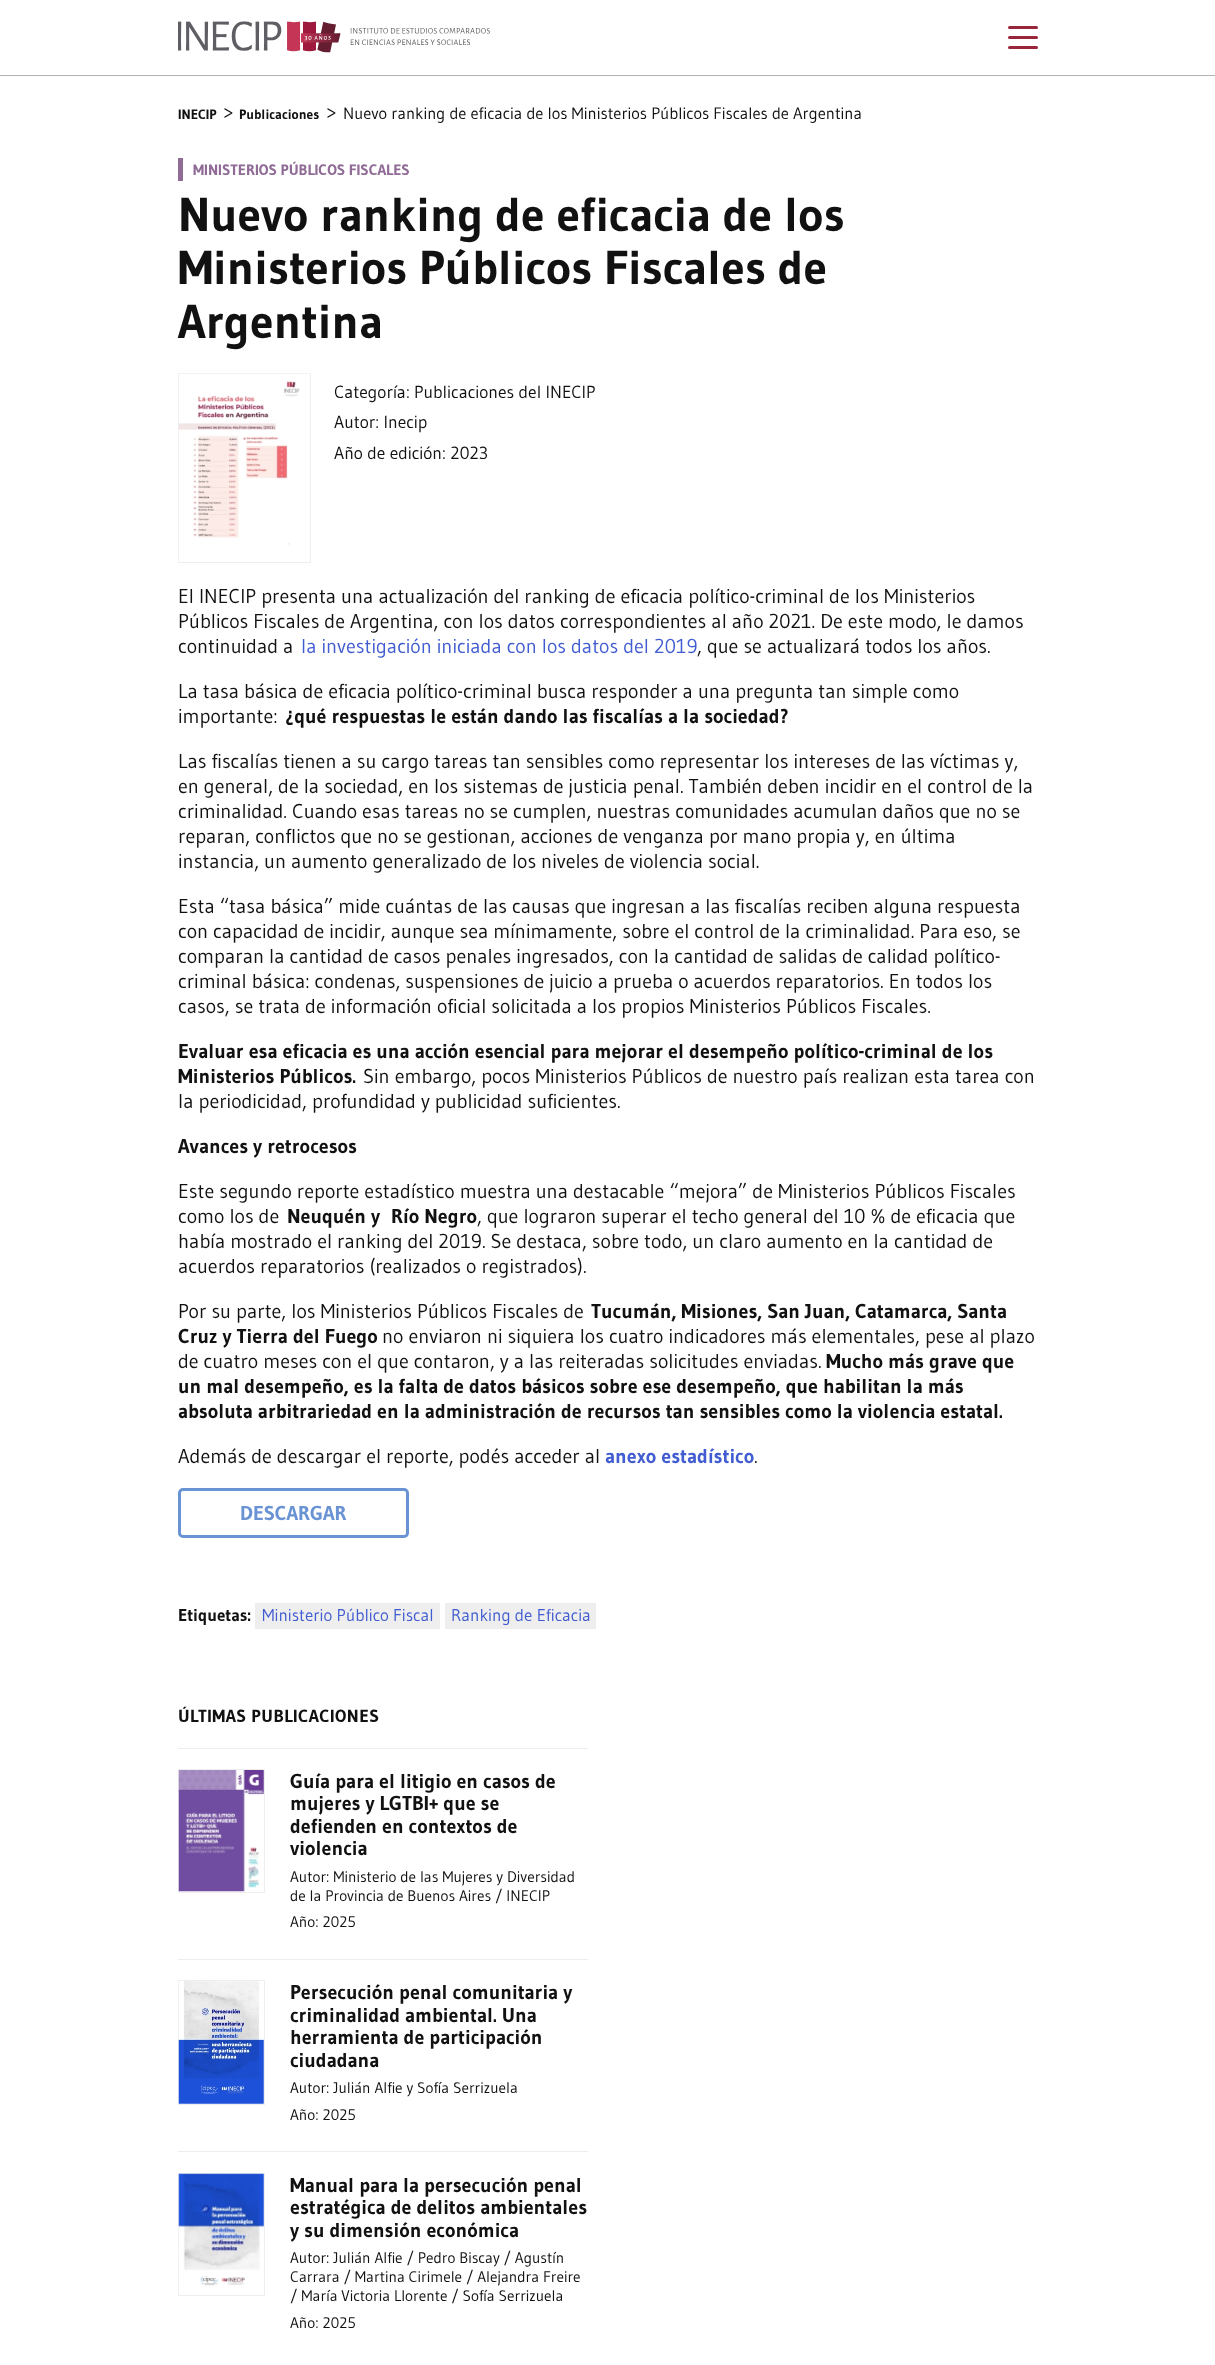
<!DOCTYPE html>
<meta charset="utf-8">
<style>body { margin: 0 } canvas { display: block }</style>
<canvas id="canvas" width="1215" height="2365"></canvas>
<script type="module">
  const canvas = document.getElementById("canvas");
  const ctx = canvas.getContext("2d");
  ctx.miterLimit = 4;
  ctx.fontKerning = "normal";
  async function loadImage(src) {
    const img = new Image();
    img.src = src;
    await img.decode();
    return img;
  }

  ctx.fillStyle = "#ffffff";
  ctx.fillRect(0, 0, 1215, 2365);
  ctx.fillStyle = "#b3b3b3";
  ctx.fillRect(0, 75, 1215, 1);
  ctx.drawImage(await loadImage("img1.png"), 178, 21, 312, 32);
  ctx.fillStyle = "#99253b";
  ctx.beginPath();
  ctx.roundRect(1008, 26, 30, 3, 1.5);
  ctx.fill();
  ctx.beginPath();
  ctx.roundRect(1008, 36, 30, 3, 1.5);
  ctx.fill();
  ctx.beginPath();
  ctx.roundRect(1008, 46, 30, 3, 1.5);
  ctx.fill();
  ctx.font = "bold 13.5px Gudea";
  ctx.fillStyle = "#111111";
  ctx.fillText("INECIP", 178, 119);
  ctx.font = "20px Gudea";
  ctx.fillText(">", 223, 119);
  ctx.font = "bold 13.5px Gudea";
  ctx.fillText("Publicaciones", 239, 119);
  ctx.font = "20px Gudea";
  ctx.fillText(">", 326, 119);
  ctx.font = "16.5px Gudea";
  ctx.fillText("Nuevo ranking de eficacia de los Ministerios Públicos Fiscales de Argentina", 343, 119);
  ctx.fillStyle = "#8f6b96";
  ctx.fillRect(178, 158, 5, 23);
  ctx.font = "bold 15px Gudea";
  ctx.fillText("MINISTERIOS PÚBLICOS FISCALES", 193, 175);
  ctx.font = "bold 47.5px Gudea";
  ctx.fillStyle = "#111111";
  ctx.fillText("Nuevo ranking de eficacia de los", 178, 231);
  ctx.fillText("Ministerios Públicos Fiscales de", 178, 284);
  ctx.fillText("Argentina", 178, 338);
  ctx.strokeStyle = "#eeeeee";
  ctx.strokeRect(178.5, 373.5, 132, 189);
  ctx.drawImage(await loadImage("img2.png"), 178, 373, 132, 188);
  ctx.font = "17.5px Gudea";
  ctx.fillText("Categoría: Publicaciones del INECIP", 334, 398);
  ctx.fillText("Autor: Inecip", 334, 428);
  ctx.fillText("Año de edición: 2023", 334, 459);
  ctx.font = "20px Gudea";
  ctx.fillText("El INECIP presenta una actualización del ranking de eficacia político-criminal de los Ministerios", 178, 603);
  ctx.fillText("Públicos Fiscales de Argentina, con los datos correspondientes al año 2021. De este modo, le damos", 178, 628);
  ctx.fillText("continuidad a", 178, 653);
  ctx.fillStyle = "#425dd1";
  ctx.fillText("la investigación iniciada con los datos del 2019", 301, 653);
  ctx.fillStyle = "#111111";
  ctx.fillText(", que se actualizará todos los años.", 697, 653);
  ctx.fillText("La tasa básica de eficacia político-criminal busca responder a una pregunta tan simple como", 178, 698);
  ctx.fillText("importante:", 178, 723);
  ctx.font = "bold 20px Gudea";
  ctx.fillText("¿qué respuestas le están dando las fiscalías a la sociedad?", 285, 723);
  ctx.font = "20px Gudea";
  ctx.fillText("Las fiscalías tienen a su cargo tareas tan sensibles como representar los intereses de las víctimas y,", 178, 768);
  ctx.fillText("en general, de la sociedad, en los sistemas de justicia penal. También deben incidir en el control de la", 178, 793);
  ctx.fillText("criminalidad. Cuando esas tareas no se cumplen, nuestras comunidades acumulan daños que no se", 178, 818);
  ctx.fillText("reparan, conflictos que no se gestionan, acciones de venganza por mano propia y, en última", 178, 843);
  ctx.fillText("instancia, un aumento generalizado de los niveles de violencia social.", 178, 868);
  ctx.fillText("Esta “tasa básica” mide cuántas de las causas que ingresan a las fiscalías reciben alguna respuesta", 178, 913);
  ctx.fillText("con capacidad de incidir, aunque sea mínimamente, sobre el control de la criminalidad. Para eso, se", 178, 938);
  ctx.fillText("comparan la cantidad de casos penales ingresados, con la cantidad de salidas de calidad político-", 178, 963);
  ctx.fillText("criminal básica: condenas, suspensiones de juicio a prueba o acuerdos reparatorios. En todos los", 178, 988);
  ctx.fillText("casos, se trata de información oficial solicitada a los propios Ministerios Públicos Fiscales.", 178, 1013);
  ctx.font = "bold 20px Gudea";
  ctx.fillText("Evaluar esa eficacia es una acción esencial para mejorar el desempeño político-criminal de los", 178, 1058);
  ctx.fillText("Ministerios Públicos.", 178, 1083);
  ctx.font = "20px Gudea";
  ctx.fillText("Sin embargo, pocos Ministerios Públicos de nuestro país realizan esta tarea con", 363, 1083);
  ctx.fillText("la periodicidad, profundidad y publicidad suficientes.", 178, 1108);
  ctx.font = "bold 20px Gudea";
  ctx.fillText("Avances y retrocesos", 178, 1153);
  ctx.font = "20px Gudea";
  ctx.fillText("Este segundo reporte estadístico muestra una destacable “mejora” de Ministerios Públicos Fiscales", 178, 1198);
  ctx.fillText("como los de", 178, 1223);
  ctx.font = "bold 20px Gudea";
  ctx.fillText("Neuquén y", 287, 1223);
  ctx.fillText("Río Negro", 391, 1223);
  ctx.font = "20px Gudea";
  ctx.fillText(", que lograron superar el techo general del 10 % de eficacia que", 477, 1223);
  ctx.fillText("había mostrado el ranking del 2019. Se destaca, sobre todo, un claro aumento en la cantidad de", 178, 1248);
  ctx.fillText("acuerdos reparatorios (realizados o registrados).", 178, 1273);
  ctx.fillText("Por su parte, los Ministerios Públicos Fiscales de", 178, 1318);
  ctx.font = "bold 20px Gudea";
  ctx.fillText("Tucumán, Misiones, San Juan, Catamarca, Santa", 591, 1318);
  ctx.fillText("Cruz y Tierra del Fuego", 178, 1343);
  ctx.font = "20px Gudea";
  ctx.fillText("no enviaron ni siquiera los cuatro indicadores más elementales, pese al plazo", 382, 1343);
  ctx.fillText("de cuatro meses con el que contaron, y a las reiteradas solicitudes enviadas.", 178, 1368);
  ctx.font = "bold 20px Gudea";
  ctx.fillText("Mucho más grave que", 826, 1368);
  ctx.fillText("un mal desempeño, es la falta de datos básicos sobre ese desempeño, que habilitan la más", 178, 1393);
  ctx.fillText("absoluta arbitrariedad en la administración de recursos tan sensibles como la violencia estatal.", 178, 1418);
  ctx.font = "20px Gudea";
  ctx.fillText("Además de descargar el reporte, podés acceder al", 178, 1463);
  ctx.font = "bold 20px Gudea";
  ctx.fillStyle = "#425dd1";
  ctx.fillText("anexo estadístico", 605, 1463);
  ctx.font = "20px Gudea";
  ctx.fillStyle = "#111111";
  ctx.fillText(".", 754, 1463);
  ctx.beginPath();
  ctx.roundRect(179.5, 1489.5, 228, 47, 3.5);
  ctx.strokeStyle = "#6a93d4";
  ctx.lineWidth = 3;
  ctx.stroke();
  ctx.font = "bold 20px Gudea";
  ctx.fillStyle = "#6a93d4";
  ctx.fillText("DESCARGAR", 240, 1520);
  ctx.font = "bold 17px Gudea";
  ctx.fillStyle = "#111111";
  ctx.fillText("Etiquetas:", 178, 1621);
  ctx.fillStyle = "#eeeeee";
  ctx.fillRect(255, 1603, 185, 26);
  ctx.font = "17px Gudea";
  ctx.fillStyle = "#425dd1";
  ctx.fillText("Ministerio Público Fiscal", 262, 1621);
  ctx.fillStyle = "#eeeeee";
  ctx.fillRect(445, 1603, 151, 26);
  ctx.fillStyle = "#425dd1";
  ctx.fillText("Ranking de Eficacia", 451, 1621);
  ctx.letterSpacing = "0.5px";
  ctx.font = "bold 17.5px Gudea";
  ctx.fillStyle = "#111111";
  ctx.fillText("ÚLTIMAS PUBLICACIONES", 178, 1722);
  ctx.fillStyle = "#eeeeee";
  ctx.fillRect(178, 1748, 410, 1);
  ctx.strokeStyle = "#eeeeee";
  ctx.lineWidth = 1;
  ctx.strokeRect(178.5, 1769.5, 86, 123);
  ctx.drawImage(await loadImage("img3.png"), 178, 1770, 86, 122);
  ctx.letterSpacing = "0px";
  ctx.font = "bold 20px Gudea";
  ctx.fillStyle = "#111111";
  ctx.fillText("Guía para el litigio en casos de", 290, 1788);
  ctx.fillText("mujeres y LGTBI+ que se", 290, 1810);
  ctx.fillText("defienden en contextos de", 290, 1833);
  ctx.fillText("violencia", 290, 1855);
  ctx.font = "15.3px Gudea";
  ctx.fillText("Autor: Ministerio de las Mujeres y Diversidad", 290, 1882);
  ctx.fillText("de la Provincia de Buenos Aires / INECIP", 290, 1901);
  ctx.fillText("Año: 2025", 290, 1927);
  ctx.fillStyle = "#eeeeee";
  ctx.fillRect(178, 1959, 410, 1);
  ctx.strokeRect(178.5, 1980.5, 86, 124);
  ctx.drawImage(await loadImage("img4.png"), 178, 1981, 86, 123);
  ctx.font = "bold 20px Gudea";
  ctx.fillStyle = "#111111";
  ctx.fillText("Persecución penal comunitaria y", 290, 1999);
  ctx.fillText("criminalidad ambiental. Una", 290, 2022);
  ctx.fillText("herramienta de participación", 290, 2044);
  ctx.fillText("ciudadana", 290, 2067);
  ctx.font = "15.3px Gudea";
  ctx.fillText("Autor: Julián Alfie y Sofía Serrizuela", 290, 2093);
  ctx.fillText("Año: 2025", 290, 2120);
  ctx.fillStyle = "#eeeeee";
  ctx.fillRect(178, 2151, 410, 1);
  ctx.strokeRect(178.5, 2173.5, 86, 122);
  ctx.drawImage(await loadImage("img5.png"), 178, 2173, 86, 122);
  ctx.font = "bold 20px Gudea";
  ctx.fillStyle = "#111111";
  ctx.fillText("Manual para la persecución penal", 290, 2192);
  ctx.fillText("estratégica de delitos ambientales", 290, 2214);
  ctx.fillText("y su dimensión económica", 290, 2237);
  ctx.font = "15.3px Gudea";
  ctx.fillText("Autor: Julián Alfie / Pedro Biscay / Agustín", 290, 2263);
  ctx.fillText("Carrara / Martina Cirimele / Alejandra Freire", 290, 2282);
  ctx.fillText("/ María Victoria Llorente / Sofía Serrizuela", 290, 2301);
  ctx.fillText("Año: 2025", 290, 2328);
</script>
